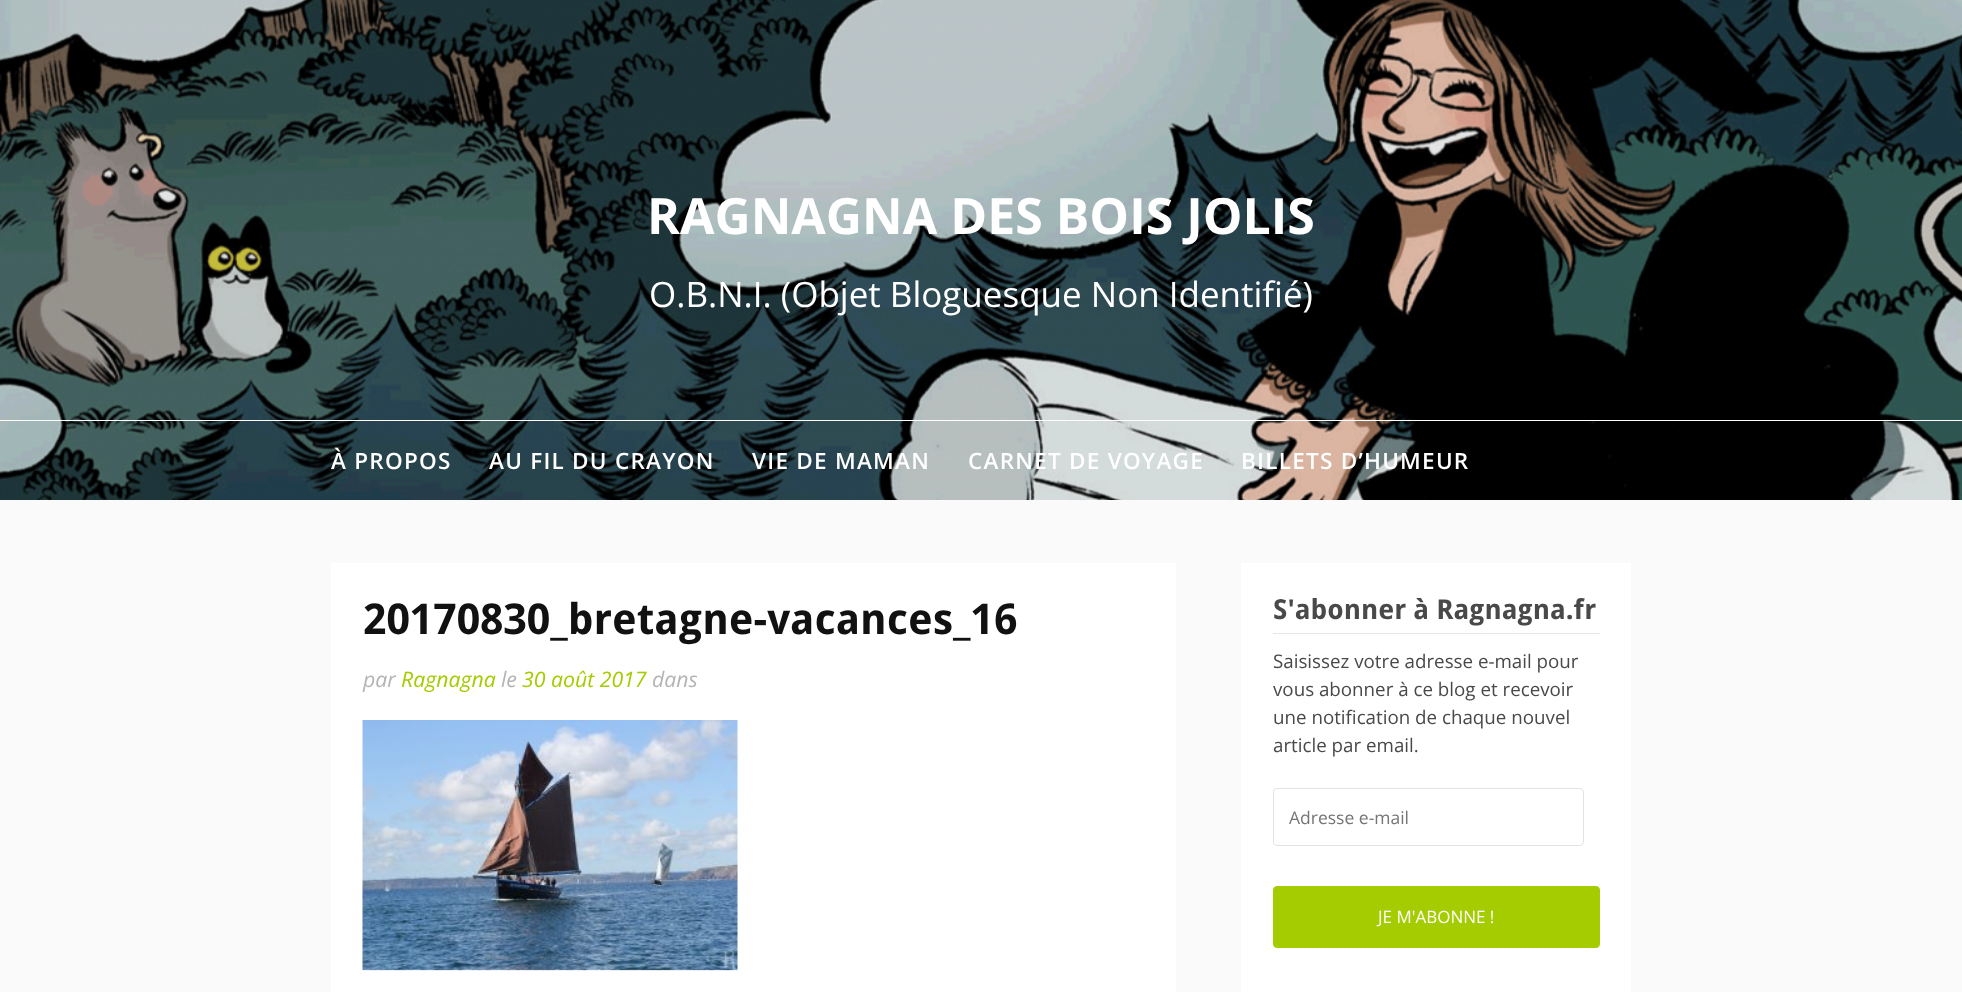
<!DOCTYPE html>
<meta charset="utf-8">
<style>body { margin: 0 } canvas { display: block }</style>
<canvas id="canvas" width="1962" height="992"></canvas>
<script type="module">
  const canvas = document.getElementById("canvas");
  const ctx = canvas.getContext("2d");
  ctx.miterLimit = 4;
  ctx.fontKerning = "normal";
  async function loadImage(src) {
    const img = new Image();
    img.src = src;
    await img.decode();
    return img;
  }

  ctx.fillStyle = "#fafafa";
  ctx.fillRect(0, 0, 1962, 992);
  ctx.drawImage(await loadImage("img1.png"), 0, 0, 1962, 500);
  ctx.font = "bold 50px Open Sans";
  ctx.fillStyle = "#ffffff";
  ctx.fillText("RAGNAGNA DES BOIS JOLIS", 647, 234);
  ctx.font = "35px Open Sans";
  ctx.fillText("O.B.N.I. (Objet Bloguesque Non Identifié)", 649, 307);
  ctx.fillRect(0, 420, 1962, 1);
  ctx.letterSpacing = "1.25px";
  ctx.font = "600 22.5px Open Sans";
  ctx.fillText("À PROPOS", 331, 469);
  ctx.fillText("AU FIL DU CRAYON", 489, 469);
  ctx.fillText("VIE DE MAMAN", 752, 469);
  ctx.fillText("CARNET DE VOYAGE", 968, 469);
  ctx.fillText("BILLETS D’HUMEUR", 1241, 469);
  ctx.fillRect(331, 563, 845, 429);
  ctx.letterSpacing = "0px";
  ctx.font = "bold 42.5px Droid Sans";
  ctx.fillStyle = "#111111";
  ctx.fillText("20170830_bretagne-vacances_16", 363, 634);
  ctx.font = "italic 21.25px Open Sans";
  ctx.fillStyle = "#b4b4b4";
  ctx.fillText("par", 363, 687);
  ctx.fillStyle = "#a4cc00";
  ctx.fillText("Ragnagna", 401, 687);
  ctx.fillStyle = "#b4b4b4";
  ctx.fillText("le", 501, 687);
  ctx.fillStyle = "#a4cc00";
  ctx.fillText("30 août 2017", 522, 687);
  ctx.fillStyle = "#b4b4b4";
  ctx.fillText("dans", 652, 687);
  ctx.drawImage(await loadImage("img2.png"), 362, 720, 376, 251);
  ctx.fillStyle = "#ffffff";
  ctx.fillRect(1241, 563, 390, 429);
  ctx.fillStyle = "#e6e6e6";
  ctx.fillRect(1273, 633, 327, 1);
  ctx.font = "bold 27.5px Droid Sans";
  ctx.fillStyle = "#494949";
  ctx.fillText("S'abonner à Ragnagna.fr", 1273, 619);
  ctx.font = "18.75px Open Sans";
  ctx.fillText("Saisissez votre adresse e-mail pour", 1273, 668);
  ctx.fillText("vous abonner à ce blog et recevoir", 1273, 696);
  ctx.fillText("une notification de chaque nouvel", 1273, 724);
  ctx.fillText("article par email.", 1273, 752);
  ctx.beginPath();
  ctx.roundRect(1273.5, 788.5, 310, 57, 3.5);
  ctx.strokeStyle = "#e3e3e3";
  ctx.stroke();
  ctx.font = "17.5px Open Sans";
  ctx.fillStyle = "#757575";
  ctx.fillText("Adresse e-mail", 1289, 824);
  ctx.fillStyle = "#a4cc00";
  ctx.beginPath();
  ctx.roundRect(1273.5, 886.5, 326, 61, 3.5);
  ctx.fill();
  ctx.strokeStyle = "#a4cc00";
  ctx.stroke();
  ctx.font = "17px Open Sans";
  ctx.fillStyle = "#ffffff";
  ctx.fillText("JE M'ABONNE !", 1378, 923);
</script>
